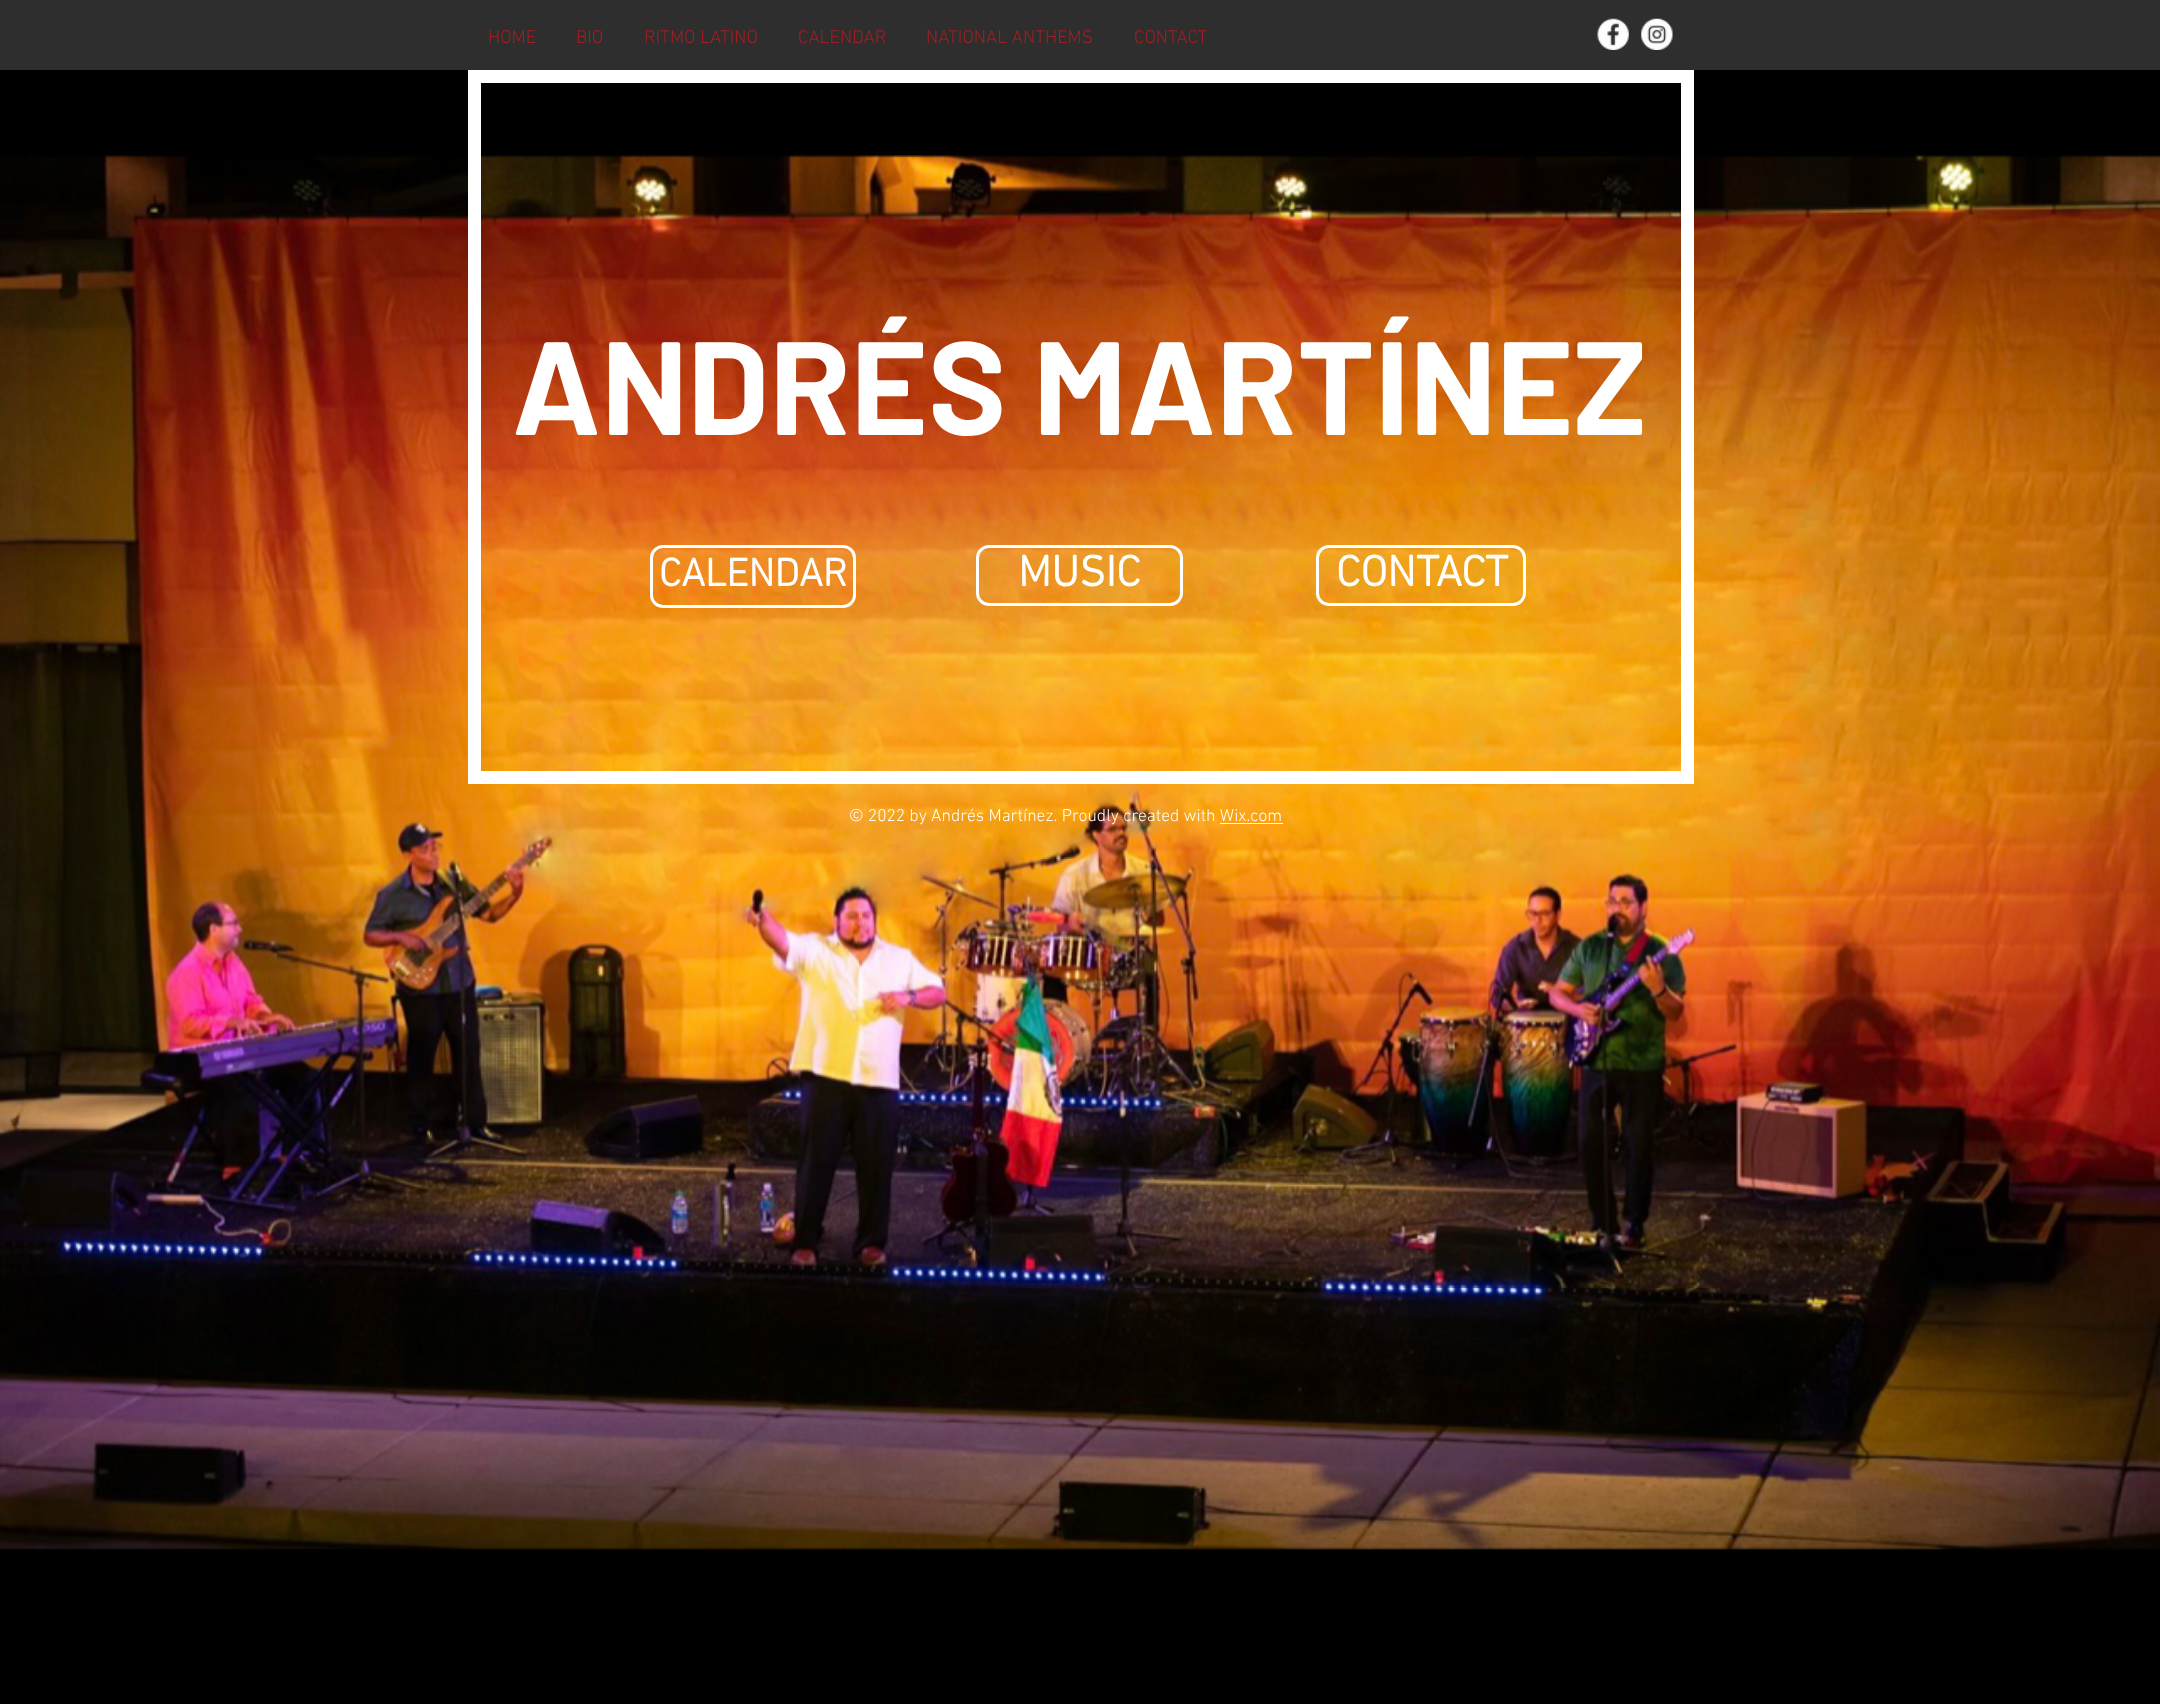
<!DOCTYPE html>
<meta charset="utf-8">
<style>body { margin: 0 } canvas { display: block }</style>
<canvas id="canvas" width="2160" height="1704"></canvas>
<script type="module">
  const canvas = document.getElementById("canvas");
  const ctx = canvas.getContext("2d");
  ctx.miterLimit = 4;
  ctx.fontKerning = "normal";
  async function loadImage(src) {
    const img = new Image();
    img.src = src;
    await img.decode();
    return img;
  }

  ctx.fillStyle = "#000000";
  ctx.fillRect(0, 0, 2160, 1704);
  ctx.fillStyle = "#2f2e2e";
  ctx.fillRect(0, 0, 2160, 70);
  ctx.font = "300 18.75px 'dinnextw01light'";
  ctx.fillStyle = "#a01f24";
  ctx.fillText("HOME", 488, 43);
  ctx.fillText("BIO", 576, 43);
  ctx.fillText("RITMO LATINO", 644, 43);
  ctx.fillText("CALENDAR", 798, 43);
  ctx.fillText("NATIONAL ANTHEMS", 926, 43);
  ctx.fillText("CONTACT", 1134, 43);
  ctx.drawImage(await loadImage("img1.png"), 1597, 18, 32, 32);
  ctx.drawImage(await loadImage("img2.png"), 1641, 18, 32, 32);
  ctx.drawImage(await loadImage("img3.png"), 0, 155, 2160, 1395);
  ctx.strokeStyle = "#ffffff";
  ctx.lineWidth = 13;
  ctx.strokeRect(474.5, 76.5, 1213, 701);
  ctx.font = "bold 132.5px Barlow";
  ctx.fillStyle = "#ffffff";
  ctx.fillText("ANDRÉS MARTÍNEZ", 512, 435);
  ctx.beginPath();
  ctx.roundRect(651.5, 546.5, 203, 60, 11.5);
  ctx.lineWidth = 3;
  ctx.stroke();
  ctx.font = "bold 40px 'dinnextw01light'";
  ctx.fillText("CALENDAR", 659, 586);
  ctx.beginPath();
  ctx.roundRect(977.5, 546.5, 204, 58, 11.5);
  ctx.stroke();
  ctx.font = "bold 44px 'dinnextw01light'";
  ctx.fillText("MUSIC", 1018, 586);
  ctx.beginPath();
  ctx.roundRect(1317.5, 546.5, 207, 58, 11.5);
  ctx.stroke();
  ctx.fillText("CONTACT", 1336, 586);
  ctx.font = "300 17.5px 'dinnextw01light'";
  ctx.fillText("© 2022 by Andrés Martínez. Proudly created with Wix.com", 849, 821);
  ctx.fillRect(1220, 823, 63, 1);
</script>
